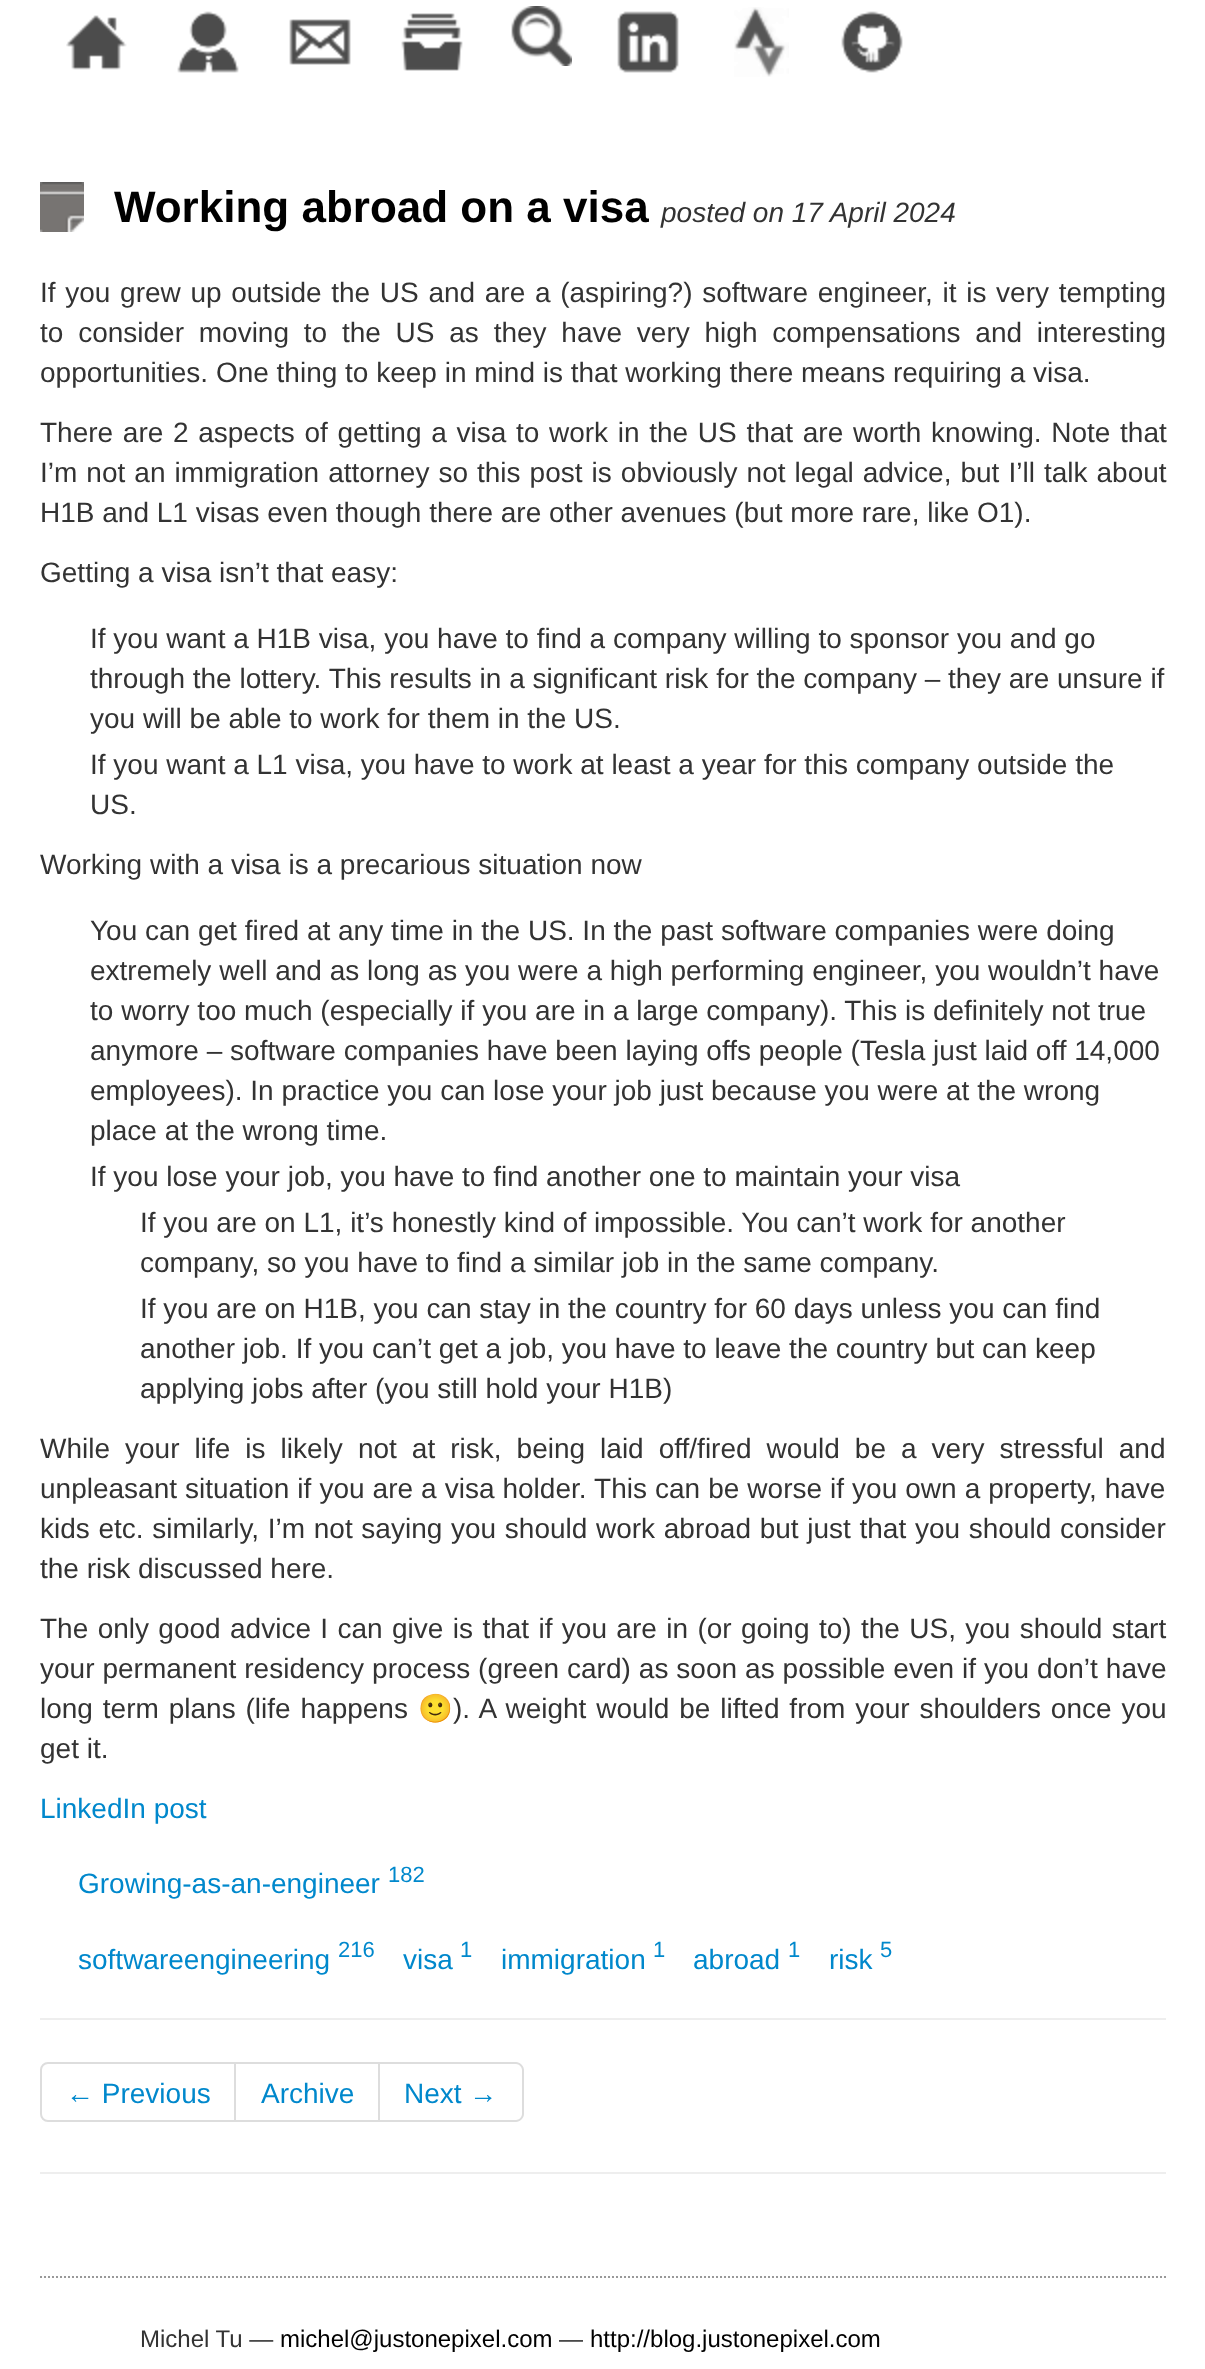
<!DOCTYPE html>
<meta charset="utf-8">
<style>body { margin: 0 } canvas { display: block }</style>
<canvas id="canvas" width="1205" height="2369"></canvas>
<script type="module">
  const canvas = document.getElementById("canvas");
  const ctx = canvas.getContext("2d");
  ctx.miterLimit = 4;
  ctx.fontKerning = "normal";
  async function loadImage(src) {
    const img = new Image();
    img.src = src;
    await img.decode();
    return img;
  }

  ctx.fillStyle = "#ffffff";
  ctx.fillRect(0, 0, 1205, 2369);
  ctx.drawImage(await loadImage("img1.png"), 66, 15, 61, 55);
  ctx.drawImage(await loadImage("img2.png"), 177, 11, 62, 62);
  ctx.drawImage(await loadImage("img3.png"), 289, 19, 62, 46);
  ctx.drawImage(await loadImage("img4.png"), 401, 13, 62, 58);
  ctx.drawImage(await loadImage("img5.png"), 511, 6, 61, 60);
  ctx.drawImage(await loadImage("img6.png"), 617, 11, 62, 62);
  ctx.drawImage(await loadImage("img7.png"), 734, 7, 55, 70);
  ctx.drawImage(await loadImage("img8.png"), 841, 11, 62, 62);
  ctx.beginPath();
  ctx.moveTo(40, 2277);
  ctx.lineTo(1166, 2277);
  ctx.strokeStyle = "#999999";
  ctx.lineWidth = 2;
  ctx.setLineDash([2, 2]);
  ctx.stroke();
  ctx.drawImage(await loadImage("img9.png"), 40, 182, 44, 50);
  ctx.font = "bold 44px Liberation Sans";
  ctx.fillStyle = "#000000";
  ctx.fillText("Working abroad on a visa", 114, 222);
  ctx.font = "italic 28px Liberation Sans";
  ctx.fillStyle = "#333333";
  ctx.fillText("posted on 17 April 2024", 661, 222);
  ctx.wordSpacing = "1.9px";
  ctx.font = "28px Liberation Sans";
  ctx.fillText("If you grew up outside the US and are a (aspiring?) software engineer, it is very tempting", 40, 302);
  ctx.wordSpacing = "7px";
  ctx.fillText("to consider moving to the US as they have very high compensations and interesting", 40, 342);
  ctx.wordSpacing = "0px";
  ctx.fillText("opportunities. One thing to keep in mind is that working there means requiring a visa.", 40, 382);
  ctx.wordSpacing = "1.9px";
  ctx.fillText("There are 2 aspects of getting a visa to work in the US that are worth knowing. Note that", 40, 442);
  ctx.wordSpacing = "1.25px";
  ctx.fillText("I’m not an immigration attorney so this post is obviously not legal advice, but I’ll talk about", 40, 482);
  ctx.wordSpacing = "0px";
  ctx.fillText("H1B and L1 visas even though there are other avenues (but more rare, like O1).", 40, 522);
  ctx.fillText("Getting a visa isn’t that easy:", 40, 582);
  ctx.fillText("If you want a H1B visa, you have to find a company willing to sponsor you and go", 90, 648);
  ctx.fillText("through the lottery. This results in a significant risk for the company – they are unsure if", 90, 688);
  ctx.fillText("you will be able to work for them in the US.", 90, 728);
  ctx.fillText("If you want a L1 visa, you have to work at least a year for this company outside the", 90, 774);
  ctx.fillText("US.", 90, 814);
  ctx.fillText("Working with a visa is a precarious situation now", 40, 874);
  ctx.fillText("You can get fired at any time in the US. In the past software companies were doing", 90, 940);
  ctx.fillText("extremely well and as long as you were a high performing engineer, you wouldn’t have", 90, 980);
  ctx.fillText("to worry too much (especially if you are in a large company). This is definitely not true", 90, 1020);
  ctx.fillText("anymore – software companies have been laying offs people (Tesla just laid off 14,000", 90, 1060);
  ctx.fillText("employees). In practice you can lose your job just because you were at the wrong", 90, 1100);
  ctx.fillText("place at the wrong time.", 90, 1140);
  ctx.fillText("If you lose your job, you have to find another one to maintain your visa", 90, 1186);
  ctx.fillText("If you are on L1, it’s honestly kind of impossible. You can’t work for another", 140, 1232);
  ctx.fillText("company, so you have to find a similar job in the same company.", 140, 1272);
  ctx.fillText("If you are on H1B, you can stay in the country for 60 days unless you can find", 140, 1318);
  ctx.fillText("another job. If you can’t get a job, you have to leave the country but can keep", 140, 1358);
  ctx.fillText("applying jobs after (you still hold your H1B)", 140, 1398);
  ctx.wordSpacing = "7.25px";
  ctx.fillText("While your life is likely not at risk, being laid off/fired would be a very stressful and", 40, 1458);
  ctx.wordSpacing = "0.25px";
  ctx.fillText("unpleasant situation if you are a visa holder. This can be worse if you own a property, have", 40, 1498);
  ctx.wordSpacing = "0.9px";
  ctx.fillText("kids etc. similarly, I’m not saying you should work abroad but just that you should consider", 40, 1538);
  ctx.wordSpacing = "0px";
  ctx.fillText("the risk discussed here.", 40, 1578);
  ctx.wordSpacing = "1.6px";
  ctx.fillText("The only good advice I can give is that if you are in (or going to) the US, you should start", 40, 1638);
  ctx.wordSpacing = "0.2px";
  ctx.fillText("your permanent residency process (green card) as soon as possible even if you don’t have", 40, 1678);
  ctx.wordSpacing = "2.1px";
  ctx.fillText("long term plans (life happens", 40, 1718);
  ctx.wordSpacing = "0px";
  ctx.font = "28px Noto Color Emoji";
  ctx.fillText("🙂", 418, 1718);
  ctx.wordSpacing = "2.1px";
  ctx.font = "28px Liberation Sans";
  ctx.fillText("). A weight would be lifted from your shoulders once you", 453, 1718);
  ctx.wordSpacing = "0px";
  ctx.fillText("get it.", 40, 1758);
  ctx.fillStyle = "#0088cc";
  ctx.fillText("LinkedIn post", 40, 1818);
  ctx.fillText("Growing-as-an-engineer", 78, 1893);
  ctx.font = "22px Liberation Sans";
  ctx.fillText("182", 388, 1882);
  ctx.font = "28px Liberation Sans";
  ctx.fillText("softwareengineering", 78, 1969);
  ctx.font = "22px Liberation Sans";
  ctx.fillText("216", 338, 1957);
  ctx.font = "28px Liberation Sans";
  ctx.fillText("visa", 403, 1969);
  ctx.font = "22px Liberation Sans";
  ctx.fillText("1", 460, 1957);
  ctx.font = "28px Liberation Sans";
  ctx.fillText("immigration", 501, 1969);
  ctx.font = "22px Liberation Sans";
  ctx.fillText("1", 653, 1957);
  ctx.font = "28px Liberation Sans";
  ctx.fillText("abroad", 693, 1969);
  ctx.font = "22px Liberation Sans";
  ctx.fillText("1", 788, 1957);
  ctx.font = "28px Liberation Sans";
  ctx.fillText("risk", 829, 1969);
  ctx.font = "22px Liberation Sans";
  ctx.fillText("5", 880, 1957);
  ctx.fillStyle = "#eeeeee";
  ctx.fillRect(40, 2018, 1126, 2);
  ctx.beginPath();
  ctx.roundRect(41, 2063, 194, 58, [7, 0, 0, 7]);
  ctx.strokeStyle = "#dddddd";
  ctx.setLineDash([]);
  ctx.stroke();
  ctx.font = "28px Liberation Sans";
  ctx.fillStyle = "#0088cc";
  ctx.fillText("← Previous", 66, 2103);
  ctx.fillStyle = "#dddddd";
  ctx.fillRect(236, 2062, 144, 2);
  ctx.fillRect(378, 2062, 2, 60);
  ctx.fillRect(236, 2120, 144, 2);
  ctx.fillStyle = "#0088cc";
  ctx.fillText("Archive", 261, 2103);
  ctx.fillStyle = "#dddddd";
  ctx.beginPath();
  ctx.moveTo(380, 2062);
  ctx.lineTo(516, 2062);
  ctx.bezierCurveTo(520, 2062, 524, 2066, 524, 2070);
  ctx.lineTo(524, 2114);
  ctx.bezierCurveTo(524, 2118, 520, 2122, 516, 2122);
  ctx.lineTo(380, 2122);
  ctx.closePath();
  ctx.moveTo(380, 2064);
  ctx.lineTo(516, 2064);
  ctx.bezierCurveTo(519, 2064, 522, 2067, 522, 2070);
  ctx.lineTo(522, 2114);
  ctx.bezierCurveTo(522, 2117, 519, 2120, 516, 2120);
  ctx.lineTo(380, 2120);
  ctx.closePath();
  ctx.fill("evenodd");
  ctx.fillStyle = "#0088cc";
  ctx.fillText("Next →", 404, 2103);
  ctx.fillStyle = "#eeeeee";
  ctx.fillRect(40, 2172, 1126, 2);
  ctx.font = "24px Liberation Sans";
  ctx.fillStyle = "#333333";
  ctx.fillText("Michel Tu —", 140, 2347);
  ctx.fillStyle = "#000000";
  ctx.fillText("michel@justonepixel.com", 280, 2347);
  ctx.fillStyle = "#333333";
  ctx.fillText("—", 559, 2347);
  ctx.fillStyle = "#000000";
  ctx.fillText("http://blog.justonepixel.com", 590, 2347);
</script>
